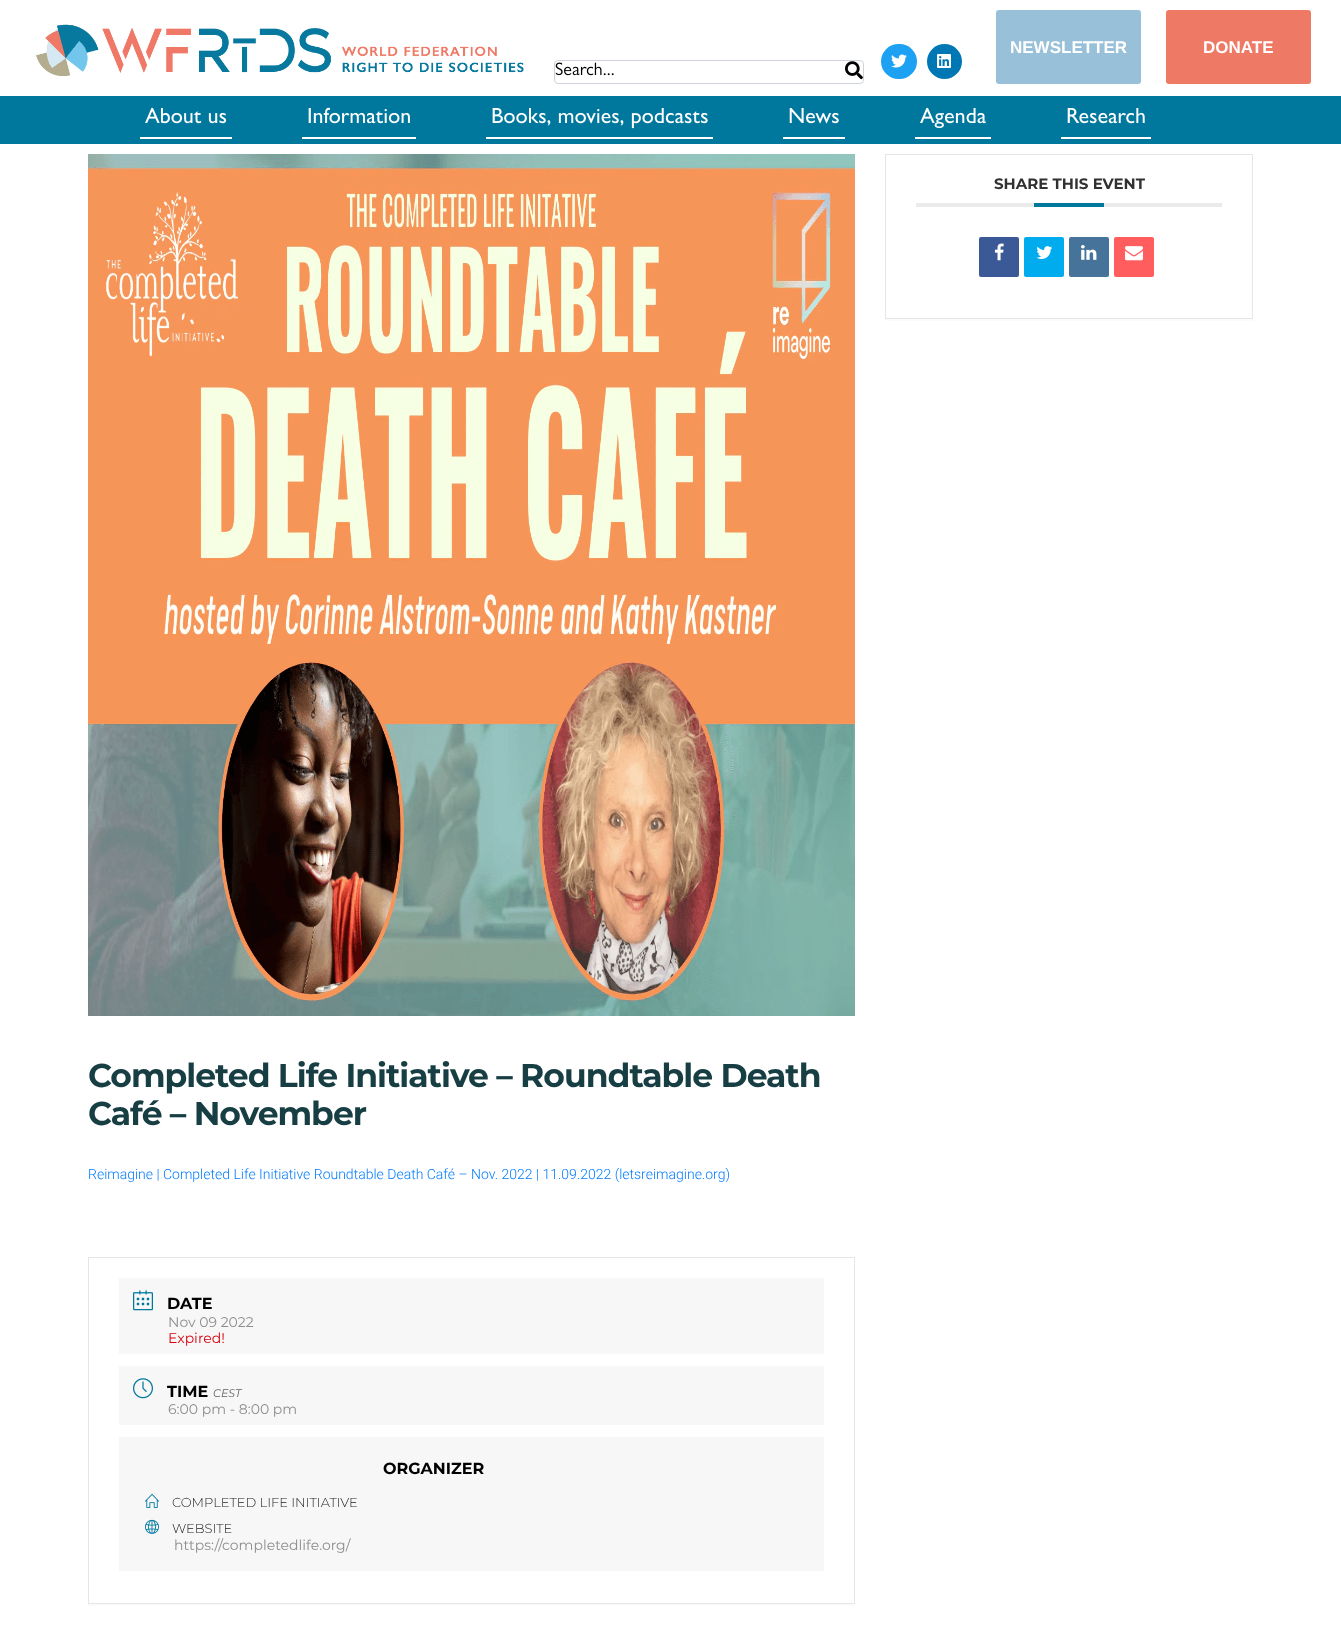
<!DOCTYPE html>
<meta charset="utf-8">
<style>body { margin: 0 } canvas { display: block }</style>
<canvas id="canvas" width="1341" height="1630"></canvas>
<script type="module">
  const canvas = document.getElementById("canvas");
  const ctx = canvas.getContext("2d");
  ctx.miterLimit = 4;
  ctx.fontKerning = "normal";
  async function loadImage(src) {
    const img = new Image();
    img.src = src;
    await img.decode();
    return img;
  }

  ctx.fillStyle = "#ffffff";
  ctx.fillRect(0, 0, 1341, 1630);
  ctx.drawImage(await loadImage("img1.png"), 36, 24, 488, 52);
  ctx.beginPath();
  ctx.roundRect(554.5, 60.5, 309, 23, 3.5);
  ctx.strokeStyle = "#ced4da";
  ctx.stroke();
  ctx.drawImage(await loadImage("img2.png"), 555, 62, 59, 14);
  ctx.drawImage(await loadImage("img3.png"), 845, 61, 18, 19);
  ctx.fillStyle = "#1da1f2";
  ctx.beginPath();
  ctx.roundRect(881, 44, 36, 35, 17.5);
  ctx.fill();
  ctx.drawImage(await loadImage("img4.png"), 891, 54, 16, 14);
  ctx.fillStyle = "#0077b5";
  ctx.beginPath();
  ctx.arc(944.5, 61.5, 17.5, 0, Math.PI * 2);
  ctx.fill();
  ctx.drawImage(await loadImage("img5.png"), 937, 54, 14, 14);
  ctx.fillStyle = "#98c1d9";
  ctx.beginPath();
  ctx.roundRect(996, 10, 145, 74, 3);
  ctx.fill();
  ctx.font = "bold 17px Liberation Sans";
  ctx.fillStyle = "#ffffff";
  ctx.fillText("NEWSLETTER", 1010, 53);
  ctx.fillStyle = "#ee7a66";
  ctx.beginPath();
  ctx.roundRect(1166, 10, 145, 74, 3);
  ctx.fill();
  ctx.fillStyle = "#ffffff";
  ctx.fillText("DONATE", 1203, 53);
  ctx.fillStyle = "#00789d";
  ctx.fillRect(0, 96, 1341, 48);
  ctx.fillStyle = "#ffffff";
  ctx.fillRect(140, 137, 92, 2);
  ctx.drawImage(await loadImage("img6.png"), 145, 107, 82, 17);
  ctx.fillRect(302, 137, 114, 2);
  ctx.drawImage(await loadImage("img7.png"), 308, 107, 102, 17);
  ctx.fillRect(486, 137, 227, 2);
  ctx.drawImage(await loadImage("img8.png"), 492, 108, 216, 21);
  ctx.fillRect(783, 137, 62, 2);
  ctx.drawImage(await loadImage("img9.png"), 789, 108, 50, 16);
  ctx.fillRect(915, 137, 76, 2);
  ctx.drawImage(await loadImage("img10.png"), 920, 107, 66, 22);
  ctx.fillRect(1061, 137, 90, 2);
  ctx.drawImage(await loadImage("img11.png"), 1067, 108, 78, 16);
  ctx.fillStyle = "#fbfbfb";
  ctx.fillRect(885, 319, 368, 2);
  ctx.strokeStyle = "#e6e6e6";
  ctx.strokeRect(885.5, 154.5, 367, 164);
  ctx.fillStyle = "#ebebeb";
  ctx.fillRect(916, 203, 306, 4);
  ctx.font = "bold 15px Montserrat";
  ctx.fillStyle = "#313131";
  ctx.fillText("SHARE THIS EVENT", 994, 189);
  ctx.fillStyle = "#00789d";
  ctx.fillRect(1034, 203, 70, 4);
  ctx.fillStyle = "#3b5996";
  ctx.beginPath();
  ctx.roundRect(979, 237, 40, 40, 2);
  ctx.fill();
  ctx.drawImage(await loadImage("img12.png"), 994, 243, 10, 18);
  ctx.fillStyle = "#00acee";
  ctx.beginPath();
  ctx.roundRect(1024, 237, 40, 40, 2);
  ctx.fill();
  ctx.drawImage(await loadImage("img13.png"), 1036, 246, 17, 13);
  ctx.fillStyle = "#457399";
  ctx.beginPath();
  ctx.roundRect(1069, 237, 40, 40, 2);
  ctx.fill();
  ctx.drawImage(await loadImage("img14.png"), 1081, 245, 16, 15);
  ctx.fillStyle = "#ff5d5e";
  ctx.beginPath();
  ctx.roundRect(1114, 237, 40, 40, 2);
  ctx.fill();
  ctx.drawImage(await loadImage("img15.png"), 1125, 246, 18, 15);
  ctx.drawImage(await loadImage("img16.png"), 88, 154, 767, 862);
  ctx.letterSpacing = "-1px";
  ctx.font = "bold 33px Montserrat";
  ctx.fillStyle = "#173e43";
  ctx.fillText("Completed Life Initiative – Roundtable Death", 88, 1087);
  ctx.fillText("Café – November", 88, 1125);
  ctx.letterSpacing = "0px";
  ctx.font = "300 14px Roboto";
  ctx.fillStyle = "#007bff";
  ctx.fillText("Reimagine | Completed Life Initiative Roundtable Death Café – Nov. 2022 | 11.09.2022 (letsreimagine.org)", 88, 1179);
  ctx.fillStyle = "#fbfbfb";
  ctx.fillRect(88, 1604, 767, 2);
  ctx.strokeRect(88.5, 1257.5, 766, 346);
  ctx.fillStyle = "#f7f7f7";
  ctx.fillRect(119, 1278, 705, 76);
  ctx.drawImage(await loadImage("img17.png"), 133, 1290, 20, 21);
  ctx.font = "bold 16px Montserrat";
  ctx.fillStyle = "#000000";
  ctx.fillText("DATE", 167, 1309);
  ctx.font = "14px Montserrat";
  ctx.fillStyle = "#8d8d8d";
  ctx.fillText("Nov 09 2022", 168, 1327);
  ctx.fillStyle = "#d8000c";
  ctx.fillText("Expired!", 168, 1343);
  ctx.fillStyle = "#f7f7f7";
  ctx.fillRect(119, 1366, 705, 59);
  ctx.drawImage(await loadImage("img18.png"), 133, 1378, 20, 21);
  ctx.font = "bold 16px Montserrat";
  ctx.fillStyle = "#000000";
  ctx.fillText("TIME", 167, 1397);
  ctx.font = "italic 11px Montserrat";
  ctx.fillStyle = "#626262";
  ctx.fillText("CEST", 213, 1397);
  ctx.font = "14px Montserrat";
  ctx.fillStyle = "#8d8d8d";
  ctx.fillText("6:00 pm - 8:00 pm", 168, 1414);
  ctx.fillStyle = "#f7f7f7";
  ctx.fillRect(119, 1437, 705, 134);
  ctx.font = "bold 16px Montserrat";
  ctx.fillStyle = "#000000";
  ctx.fillText("ORGANIZER", 383, 1474);
  ctx.drawImage(await loadImage("img19.png"), 145, 1493, 14, 15);
  ctx.font = "300 13px Montserrat";
  ctx.fillStyle = "#222222";
  ctx.fillText("COMPLETED LIFE INITIATIVE", 172, 1507);
  ctx.drawImage(await loadImage("img20.png"), 145, 1519, 14, 15);
  ctx.fillText("WEBSITE", 172, 1533);
  ctx.font = "14px Montserrat";
  ctx.fillStyle = "#8d8d8d";
  ctx.fillText("https://completedlife.org/", 174, 1550);
</script>
